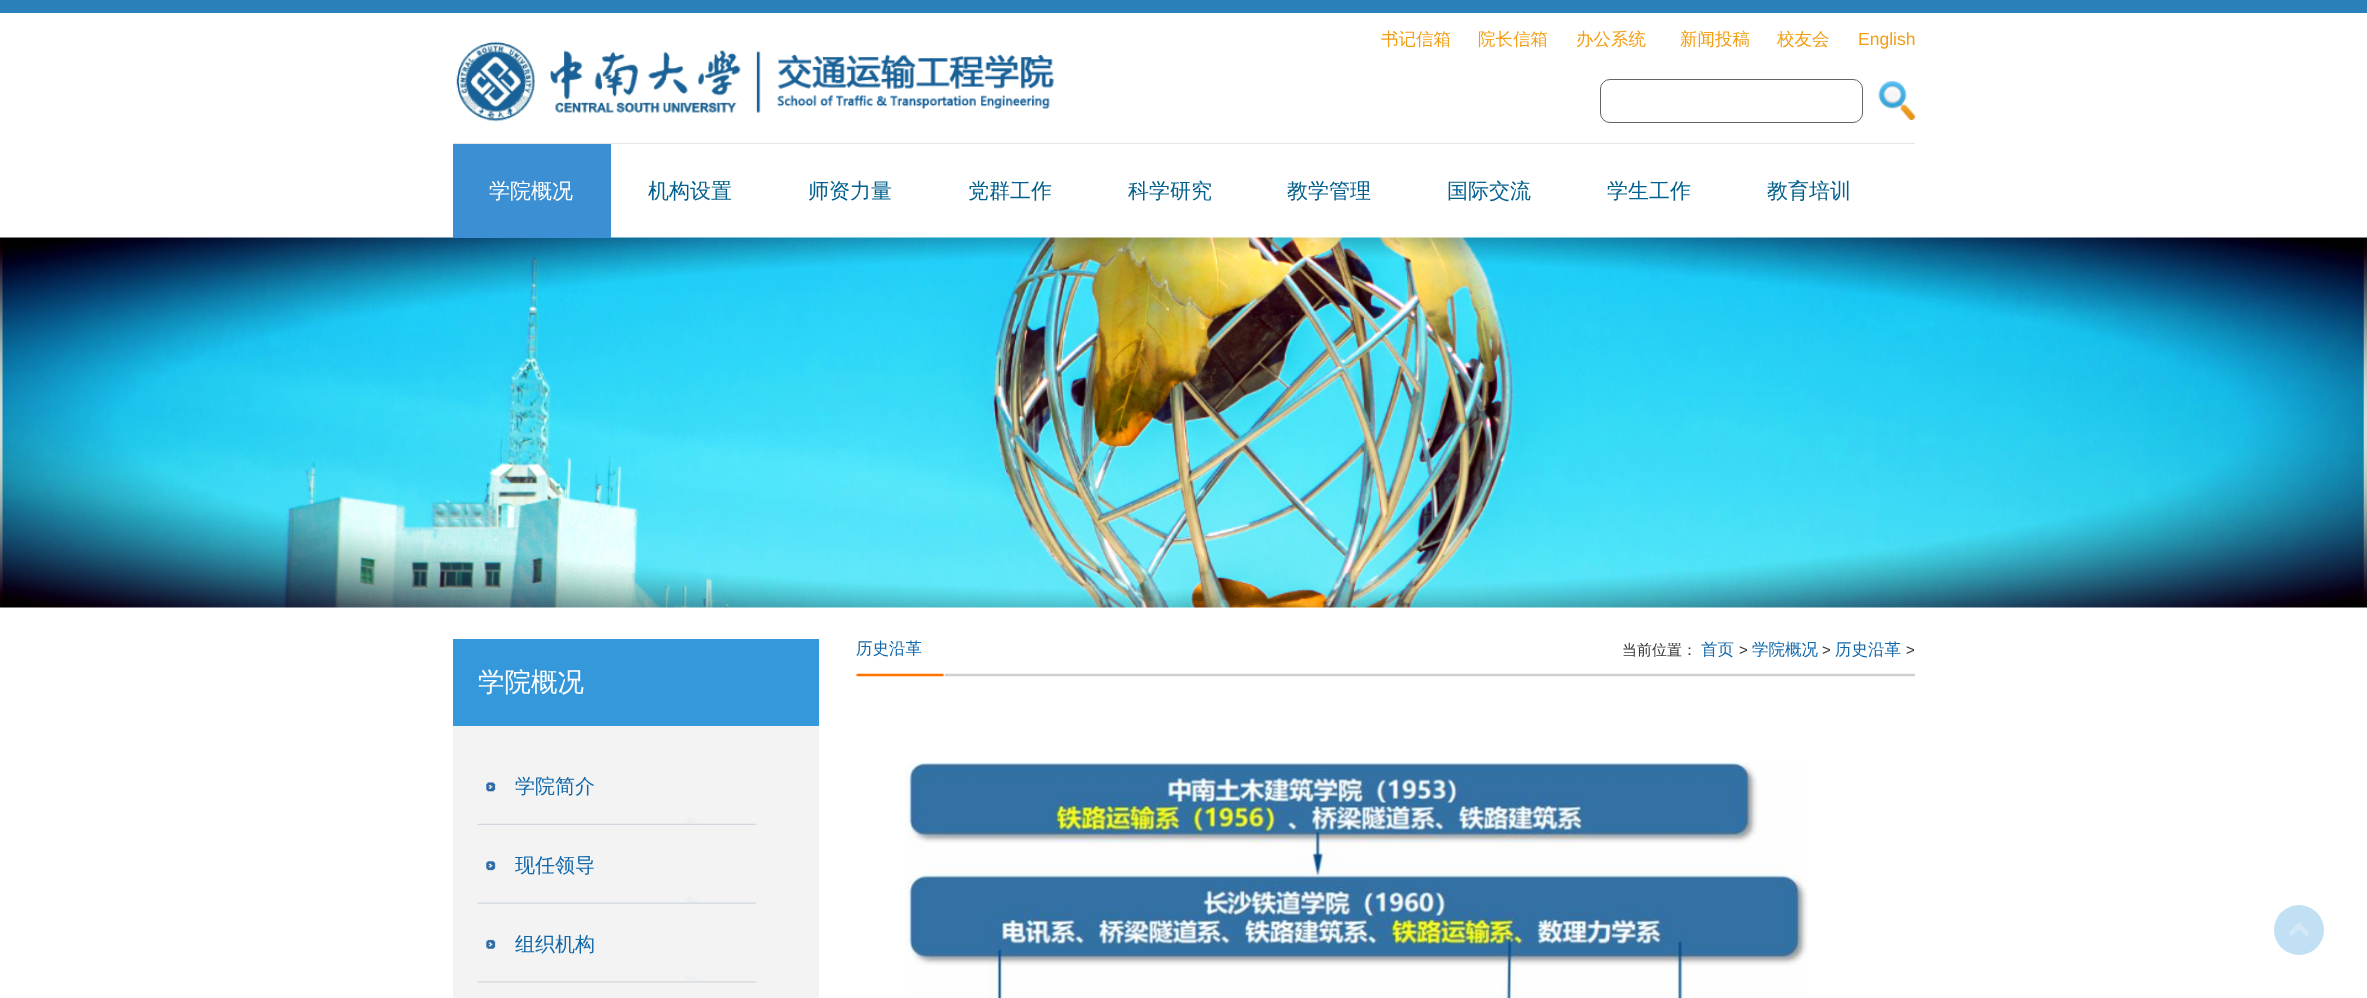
<!DOCTYPE html>
<meta charset="utf-8">
<style>body { margin: 0 } canvas { display: block }</style>
<canvas id="canvas" width="2367" height="998"></canvas>
<script type="module">
  const canvas = document.getElementById("canvas");
  const ctx = canvas.getContext("2d");
  ctx.miterLimit = 4;
  ctx.fontKerning = "normal";
  async function loadImage(src) {
    const img = new Image();
    img.src = src;
    await img.decode();
    return img;
  }

  ctx.fillStyle = "#ffffff";
  ctx.fillRect(0, 0, 2367, 998);
  ctx.fillStyle = "#2a80b9";
  ctx.fillRect(0, 0, 2367, 13);
  ctx.drawImage(await loadImage("img1.png"), 456, 41, 598, 81);
  ctx.font = "500 17.5px WenQuanYi Zen Hei";
  ctx.fillStyle = "#f39d13";
  ctx.fillText("书记信箱", 1381, 45);
  ctx.fillText("院长信箱", 1478, 45);
  ctx.fillText("办公系统", 1576, 45);
  ctx.fillText("新闻投稿", 1680, 45);
  ctx.fillText("校友会", 1777, 45);
  ctx.font = "17.5px Liberation Sans";
  ctx.fillText("English", 1858, 45);
  ctx.beginPath();
  ctx.roundRect(1600.5, 79.5, 262, 43, 9.5);
  ctx.strokeStyle = "#646464";
  ctx.stroke();
  ctx.drawImage(await loadImage("img2.png"), 1878, 81, 37, 39);
  ctx.fillStyle = "#e6e6e6";
  ctx.fillRect(453, 143, 1462, 1);
  ctx.drawImage(await loadImage("img3.png"), 0, 237, 2367, 371);
  ctx.fillStyle = "#3c8fd3";
  ctx.fillRect(453, 144, 158, 94);
  ctx.font = "500 21px WenQuanYi Zen Hei";
  ctx.fillStyle = "#ffffff";
  ctx.fillText("学院概况", 489, 198);
  ctx.fillStyle = "#005f8d";
  ctx.fillText("机构设置", 648, 198);
  ctx.fillText("师资力量", 808, 198);
  ctx.fillText("党群工作", 968, 198);
  ctx.fillText("科学研究", 1128, 198);
  ctx.fillText("教学管理", 1287, 198);
  ctx.fillText("国际交流", 1447, 198);
  ctx.fillText("学生工作", 1607, 198);
  ctx.fillText("教育培训", 1767, 198);
  ctx.drawImage(await loadImage("img4.png"), 856, 673, 1059, 4);
  ctx.font = "500 16.5px WenQuanYi Zen Hei";
  ctx.fillStyle = "#1067aa";
  ctx.fillText("历史沿革", 856, 654);
  ctx.font = "500 15px WenQuanYi Zen Hei";
  ctx.fillStyle = "#333333";
  ctx.fillText("当前位置：", 1622, 655);
  ctx.font = "500 16.5px WenQuanYi Zen Hei";
  ctx.fillStyle = "#1067aa";
  ctx.fillText("首页", 1701, 655);
  ctx.font = "15px Liberation Sans";
  ctx.fillStyle = "#333333";
  ctx.fillText(">", 1739, 655);
  ctx.font = "500 16.5px WenQuanYi Zen Hei";
  ctx.fillStyle = "#1067aa";
  ctx.fillText("学院概况", 1752, 655);
  ctx.font = "15px Liberation Sans";
  ctx.fillStyle = "#333333";
  ctx.fillText(">", 1822, 655);
  ctx.font = "500 16.5px WenQuanYi Zen Hei";
  ctx.fillStyle = "#1067aa";
  ctx.fillText("历史沿革", 1835, 655);
  ctx.font = "15px Liberation Sans";
  ctx.fillStyle = "#333333";
  ctx.fillText(">", 1906, 655);
  ctx.drawImage(await loadImage("img5.png"), 905, 762, 903, 236);
  ctx.fillStyle = "#f3f3f3";
  ctx.fillRect(453, 726, 366, 272);
  ctx.fillStyle = "#3498db";
  ctx.fillRect(453, 639, 366, 87);
  ctx.font = "500 26.5px WenQuanYi Zen Hei";
  ctx.fillStyle = "#ffffff";
  ctx.fillText("学院概况", 478, 691);
  ctx.drawImage(await loadImage("img6.png"), 477, 782, 280, 43);
  ctx.font = "500 20px WenQuanYi Zen Hei";
  ctx.fillStyle = "#1067aa";
  ctx.fillText("学院简介", 515, 793);
  ctx.drawImage(await loadImage("img7.png"), 477, 861, 280, 43);
  ctx.fillText("现任领导", 515, 872);
  ctx.drawImage(await loadImage("img8.png"), 477, 939, 280, 44);
  ctx.fillText("组织机构", 515, 951);
  ctx.fillStyle = "#c2e0f4";
  ctx.beginPath();
  ctx.arc(2299, 930, 25, 0, Math.PI * 2);
  ctx.fill();
  ctx.drawImage(await loadImage("img9.png"), 2289, 923, 20, 13);
</script>
